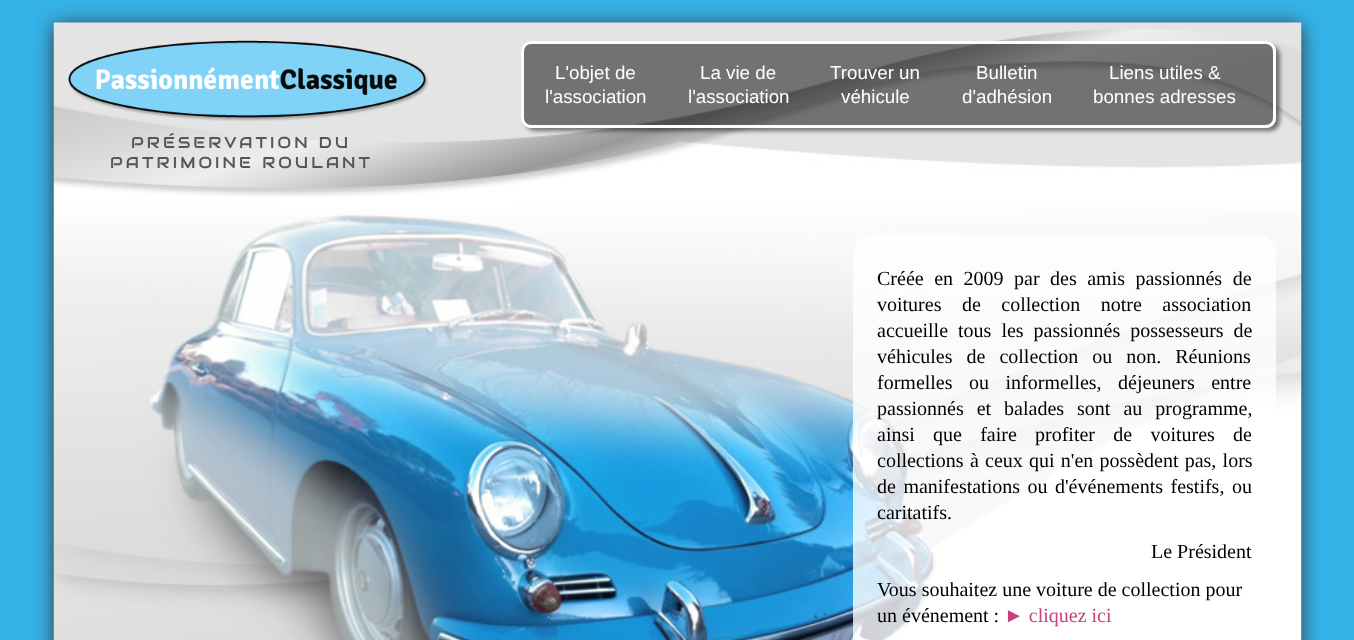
<!DOCTYPE html>
<meta charset="utf-8">
<style>body { margin: 0 } canvas { display: block }</style>
<canvas id="canvas" width="1354" height="640"></canvas>
<script type="module">
  const canvas = document.getElementById("canvas");
  const ctx = canvas.getContext("2d");
  ctx.miterLimit = 4;
  ctx.fontKerning = "normal";
  async function loadImage(src) {
    const img = new Image();
    img.src = src;
    await img.decode();
    return img;
  }

  ctx.fillStyle = "#35b2e7";
  ctx.fillRect(0, 0, 1354, 640);
  ctx.fillStyle = "#333333";
  ctx.filter = "blur(9.5px)";
  ctx.beginPath();
  ctx.roundRect(54, 25, 1247, 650, 6);
  ctx.fill();
  ctx.filter = "none";
  ctx.drawImage(await loadImage("img3.png"), 53, 197, 1249, 443);
  ctx.fillStyle = "#ffffff";
  ctx.fillRect(54, 197, 1247, 1);
  ctx.drawImage(await loadImage("img1.png"), 53, 22, 1249, 176);
  ctx.drawImage(await loadImage("img2.png"), 68, 40, 361, 81);
  ctx.save();
  ctx.beginPath();
  ctx.moveTo(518, 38);
  ctx.lineTo(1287, 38);
  ctx.lineTo(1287, 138);
  ctx.lineTo(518, 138);
  ctx.closePath();
  ctx.moveTo(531, 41);
  ctx.lineTo(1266, 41);
  ctx.bezierCurveTo(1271.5, 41, 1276, 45.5, 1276, 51);
  ctx.lineTo(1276, 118);
  ctx.bezierCurveTo(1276, 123.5, 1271.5, 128, 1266, 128);
  ctx.lineTo(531, 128);
  ctx.bezierCurveTo(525.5, 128, 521, 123.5, 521, 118);
  ctx.lineTo(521, 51);
  ctx.bezierCurveTo(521, 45.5, 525.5, 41, 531, 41);
  ctx.closePath();
  ctx.clip("evenodd");
  ctx.fillStyle = "rgba(0, 0, 0, 0.5)";
  ctx.filter = "blur(2px)";
  ctx.beginPath();
  ctx.roundRect(525, 45, 755, 86, 10);
  ctx.fill();
  ctx.filter = "none";
  ctx.restore();
  ctx.fillStyle = "rgba(0, 0, 0, 0.5)";
  ctx.beginPath();
  ctx.roundRect(522.5, 42.5, 752, 84, 8.5);
  ctx.fill();
  ctx.strokeStyle = "#ffffff";
  ctx.lineWidth = 3;
  ctx.stroke();
  ctx.font = "18.75px Liberation Sans";
  ctx.fillStyle = "#ffffff";
  ctx.fillText("L'objet de", 555, 79);
  ctx.fillText("l'association", 545, 103);
  ctx.fillText("La vie de", 700, 79);
  ctx.fillText("l'association", 688, 103);
  ctx.fillText("Trouver un", 830, 79);
  ctx.fillText("véhicule", 841, 103);
  ctx.fillText("Bulletin", 976, 79);
  ctx.fillText("d'adhésion", 962, 103);
  ctx.fillText("Liens utiles &", 1109, 79);
  ctx.fillText("bonnes adresses", 1093, 103);
  ctx.letterSpacing = "3.1px";
  ctx.font = "15.75px Audiowide";
  ctx.fillStyle = "#555555";
  ctx.fillText("PRÉSERVATION DU", 131, 148);
  ctx.fillText("PATRIMOINE ROULANT", 110, 168);
  ctx.fillStyle = "rgba(255, 255, 255, 0.8)";
  ctx.beginPath();
  ctx.roundRect(853, 235, 423, 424, 19);
  ctx.fill();
  ctx.letterSpacing = "0px";
  ctx.wordSpacing = "5.5px";
  ctx.font = "20px Liberation Serif";
  ctx.fillStyle = "#000000";
  ctx.fillText("Créée en 2009 par des amis passionnés de", 877, 285);
  ctx.wordSpacing = "15.5px";
  ctx.fillText("voitures de collection notre association", 877, 311);
  ctx.wordSpacing = "5px";
  ctx.fillText("accueille tous les passionnés possesseurs de", 877, 337);
  ctx.wordSpacing = "9px";
  ctx.fillText("véhicules de collection ou non. Réunions", 877, 363);
  ctx.wordSpacing = "11.5px";
  ctx.fillText("formelles ou informelles, déjeuners entre", 877, 389);
  ctx.wordSpacing = "8px";
  ctx.fillText("passionnés et balades sont au programme,", 877, 415);
  ctx.wordSpacing = "13.25px";
  ctx.fillText("ainsi que faire profiter de voitures de", 877, 441);
  ctx.wordSpacing = "1.25px";
  ctx.fillText("collections à ceux qui n'en possèdent pas, lors", 877, 467);
  ctx.wordSpacing = "2.5px";
  ctx.fillText("de manifestations ou d'événements festifs, ou", 877, 493);
  ctx.wordSpacing = "0px";
  ctx.fillText("caritatifs.", 877, 519);
  ctx.fillText("Le Président", 1151, 558);
  ctx.fillText("Vous souhaitez une voiture de collection pour", 877, 596);
  ctx.fillText("un événement :", 877, 622);
  ctx.fillStyle = "#ca407b";
  ctx.fillText("► cliquez ici", 1004, 622);
</script>
